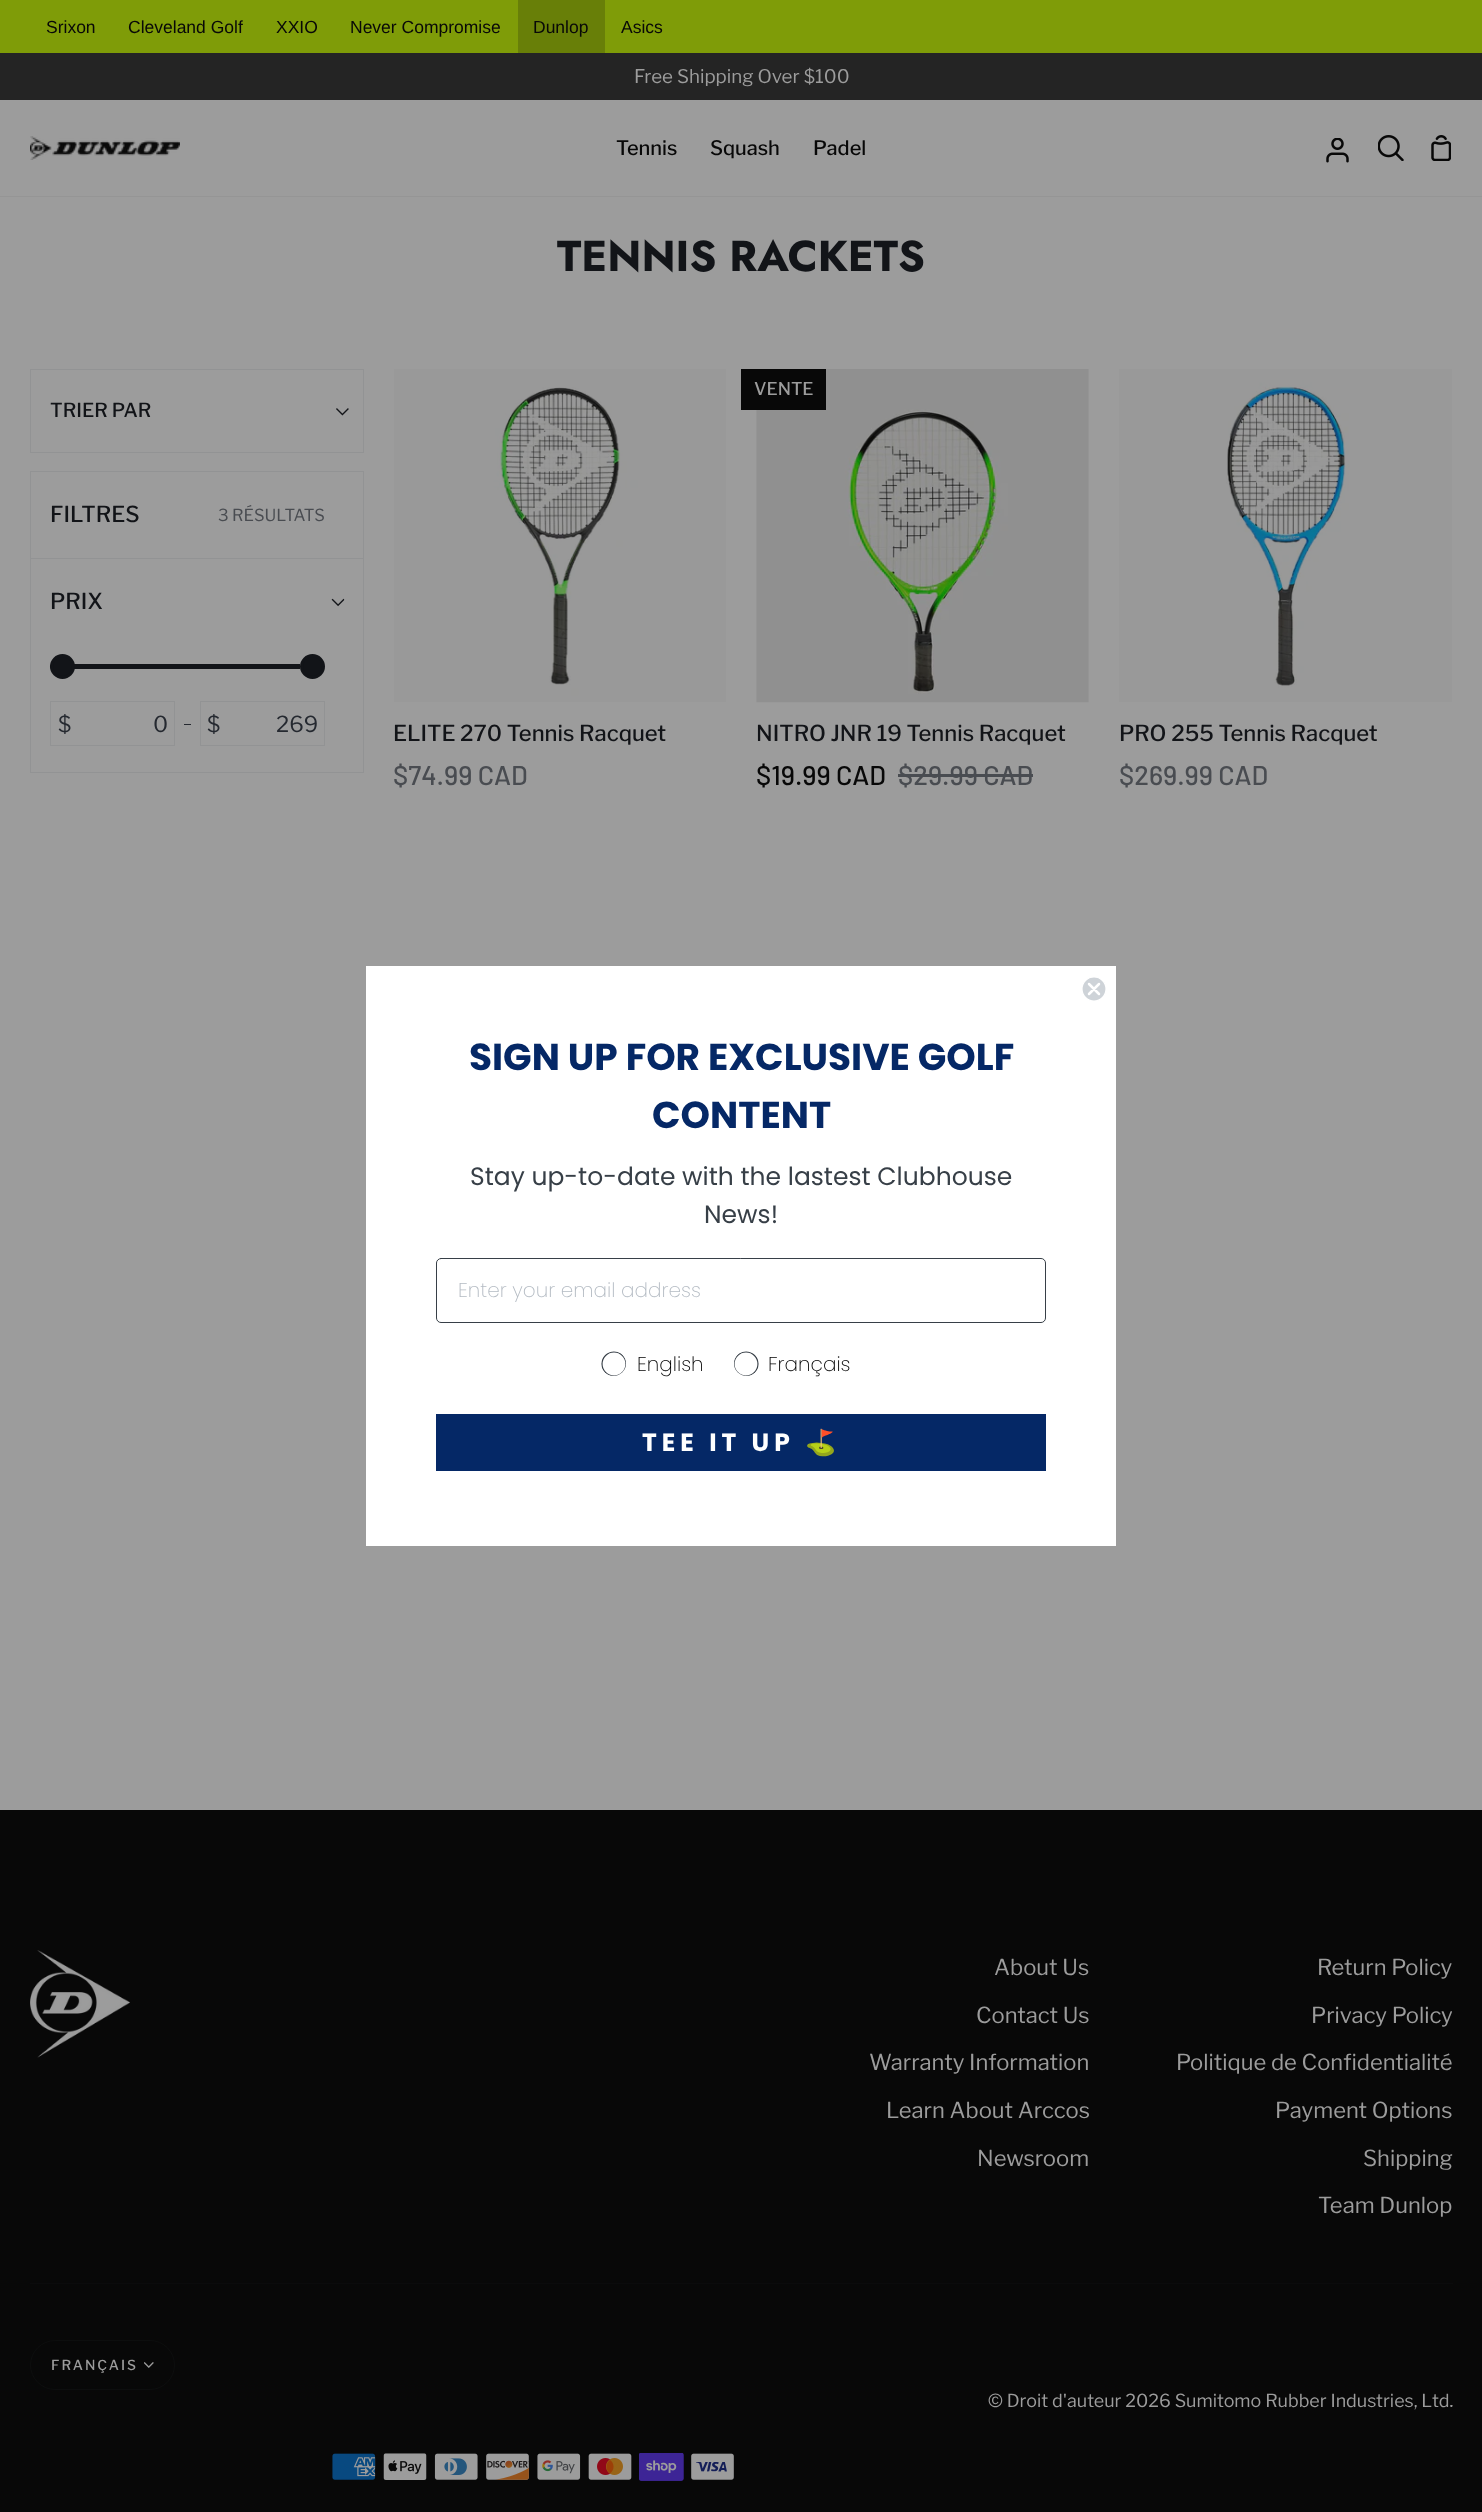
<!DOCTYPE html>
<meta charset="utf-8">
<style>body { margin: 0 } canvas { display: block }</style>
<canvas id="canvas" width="1482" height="2512"></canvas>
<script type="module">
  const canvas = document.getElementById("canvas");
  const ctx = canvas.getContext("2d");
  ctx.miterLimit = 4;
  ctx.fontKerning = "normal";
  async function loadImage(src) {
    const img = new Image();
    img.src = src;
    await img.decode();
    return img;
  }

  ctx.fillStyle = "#9c9c9c";
  ctx.fillRect(0, 0, 1482, 2512);
  ctx.fillStyle = "#959595";
  ctx.fillRect(0, 196, 1482, 1);
  ctx.fillStyle = "#7f9c08";
  ctx.fillRect(0, 0, 1482, 53);
  ctx.font = "17.5px Liberation Sans";
  ctx.fillStyle = "#080808";
  ctx.fillText("Srixon", 46, 33);
  ctx.fillText("Cleveland Golf", 128, 33);
  ctx.fillText("XXIO", 276, 33);
  ctx.fillText("Never Compromise", 350, 33);
  ctx.fillStyle = "#687f08";
  ctx.fillRect(518, 0, 87, 53);
  ctx.fillStyle = "#080808";
  ctx.fillText("Dunlop", 533, 33);
  ctx.fillText("Asics", 621, 33);
  ctx.fillStyle = "#242424";
  ctx.fillRect(0, 53, 1482, 47);
  ctx.font = "18.75px Libre Franklin";
  ctx.fillStyle = "#9c9c9c";
  ctx.fillText("Free Shipping Over $100", 634, 83);
  ctx.drawImage(await loadImage("img1.png"), 30, 136, 150, 24);
  ctx.font = "500 20px Libre Franklin";
  ctx.fillStyle = "#080808";
  ctx.fillText("Tennis", 616, 155);
  ctx.fillText("Squash", 710, 155);
  ctx.fillText("Padel", 813, 155);
  ctx.drawImage(await loadImage("img2.png"), 1326, 138, 23, 25);
  ctx.drawImage(await loadImage("img3.png"), 1378, 135, 26, 26);
  ctx.drawImage(await loadImage("img4.png"), 1431, 135, 20, 26);
  ctx.font = "bold 43.1px Jost";
  ctx.fillStyle = "#121418";
  ctx.fillText("TENNIS RACKETS", 557, 271);
  ctx.strokeStyle = "#929394";
  ctx.strokeRect(30.5, 369.5, 333, 83);
  ctx.font = "500 19.25px Libre Franklin";
  ctx.fillText("TRIER PAR", 50, 417);
  ctx.drawImage(await loadImage("img5.png"), 336, 408, 13, 8);
  ctx.strokeRect(30.5, 471.5, 333, 301);
  ctx.font = "500 22px Libre Franklin";
  ctx.fillText("FILTRES", 50, 522);
  ctx.font = "16.5px Libre Franklin";
  ctx.fillStyle = "#494c51";
  ctx.fillText("3 RÉSULTATS", 218, 521);
  ctx.fillStyle = "#929394";
  ctx.fillRect(31, 558, 332, 1);
  ctx.font = "500 22px Libre Franklin";
  ctx.fillStyle = "#121418";
  ctx.fillText("PRIX", 50, 609);
  ctx.drawImage(await loadImage("img6.png"), 331, 598, 14, 9);
  ctx.beginPath();
  ctx.roundRect(50, 664, 250, 5, [2.5, 0, 0, 2.5]);
  ctx.fill();
  ctx.beginPath();
  ctx.arc(62.5, 666.5, 11, 0, Math.PI * 2);
  ctx.fill();
  ctx.strokeStyle = "#121418";
  ctx.lineWidth = 3;
  ctx.stroke();
  ctx.beginPath();
  ctx.arc(312.5, 666.5, 11, 0, Math.PI * 2);
  ctx.fill();
  ctx.stroke();
  ctx.strokeStyle = "#929394";
  ctx.lineWidth = 1;
  ctx.strokeRect(50.5, 701.5, 124, 44);
  ctx.font = "22px Libre Franklin";
  ctx.fillStyle = "#252930";
  ctx.fillText("$", 58, 732);
  ctx.fillText("0", 153, 732);
  ctx.fillRect(184, 724, 7, 1);
  ctx.strokeRect(200.5, 701.5, 124, 44);
  ctx.fillText("$", 207, 732);
  ctx.fillText("269", 276, 732);
  ctx.drawImage(await loadImage("img7.png"), 394, 369, 332, 333);
  ctx.font = "500 22px Libre Franklin";
  ctx.fillStyle = "#121418";
  ctx.fillText("ELITE 270 Tennis Racquet", 393, 741);
  ctx.font = "500 27px Barlow";
  ctx.fillStyle = "#494c51";
  ctx.fillText("$74.99 CAD", 393, 785);
  ctx.drawImage(await loadImage("img8.png"), 756, 369, 333, 334);
  ctx.fillStyle = "#080808";
  ctx.fillRect(741, 369, 85, 41);
  ctx.font = "500 17.5px Libre Franklin";
  ctx.fillStyle = "#9c9c9c";
  ctx.fillText("VENTE", 754, 395);
  ctx.font = "500 22px Libre Franklin";
  ctx.fillStyle = "#121418";
  ctx.fillText("NITRO JNR 19 Tennis Racquet", 756, 741);
  ctx.font = "500 27px Barlow";
  ctx.fillStyle = "#080808";
  ctx.fillText("$19.99 CAD", 756, 785);
  ctx.fillStyle = "#494c51";
  ctx.fillText("$29.99 CAD", 898, 785);
  ctx.fillRect(898, 774, 135, 3);
  ctx.drawImage(await loadImage("img9.png"), 1119, 369, 333, 333);
  ctx.font = "500 22px Libre Franklin";
  ctx.fillStyle = "#121418";
  ctx.fillText("PRO 255 Tennis Racquet", 1119, 741);
  ctx.font = "500 27px Barlow";
  ctx.fillStyle = "#494c51";
  ctx.fillText("$269.99 CAD", 1119, 785);
  ctx.fillStyle = "#ffffff";
  ctx.fillRect(366, 966, 750, 580);
  ctx.fillStyle = "#ced3d8";
  ctx.beginPath();
  ctx.arc(1094, 989, 12, 0, Math.PI * 2);
  ctx.fill();
  ctx.save();
  ctx.beginPath();
  ctx.rect(1081, 976, 25, 25);
  ctx.clip();
  ctx.beginPath();
  ctx.arc(1094, 989, 12, 0, Math.PI * 2);
  ctx.strokeStyle = "#ffffff";
  ctx.lineWidth = 1.2;
  ctx.stroke();
  ctx.restore();
  ctx.beginPath();
  ctx.moveTo(1089, 984);
  ctx.lineTo(1099, 994);
  ctx.moveTo(1089, 994);
  ctx.lineTo(1099, 984);
  ctx.closePath();
  ctx.strokeStyle = "#ffffff";
  ctx.lineWidth = 2.5;
  ctx.lineCap = "round";
  ctx.lineJoin = "round";
  ctx.stroke();
  ctx.font = "bold 37.5px Poppins";
  ctx.fillStyle = "#052866";
  ctx.fillText("SIGN UP FOR EXCLUSIVE GOLF", 469, 1070);
  ctx.fillText("CONTENT", 652, 1128);
  ctx.font = "25px Poppins";
  ctx.fillStyle = "#373f47";
  ctx.fillText("Stay up-to-date with the lastest Clubhouse", 470, 1185);
  ctx.fillText("News!", 704, 1223);
  ctx.beginPath();
  ctx.roundRect(436.5, 1258.5, 609, 64, 4.5);
  ctx.strokeStyle = "#373f47";
  ctx.lineWidth = 1;
  ctx.lineJoin = "miter";
  ctx.stroke();
  ctx.font = "200 20px Poppins";
  ctx.fillStyle = "#b4bbc3";
  ctx.fillText("Enter your email address", 458, 1297);
  ctx.save();
  ctx.beginPath();
  ctx.roundRect(601, 1351, 25, 25, 12.5);
  ctx.clip();
  ctx.beginPath();
  ctx.arc(614, 1364, 12, 0, Math.PI * 2);
  ctx.lineWidth = 1.2;
  ctx.stroke();
  ctx.restore();
  ctx.fillStyle = "#000000";
  ctx.fillText("English", 637, 1371);
  ctx.save();
  ctx.beginPath();
  ctx.roundRect(734, 1351, 25, 25, 12.5);
  ctx.clip();
  ctx.beginPath();
  ctx.arc(746, 1364, 12, 0, Math.PI * 2);
  ctx.lineWidth = 1.2;
  ctx.stroke();
  ctx.restore();
  ctx.fillText("Français", 768, 1371);
  ctx.fillStyle = "#052866";
  ctx.fillRect(436, 1414, 610, 57);
  ctx.letterSpacing = "5px";
  ctx.font = "bold 25px Poppins";
  ctx.fillStyle = "#ffffff";
  ctx.fillText("TEE IT UP", 642, 1451);
  ctx.font = "bold 25px Noto Color Emoji";
  ctx.fillText("⛳", 805, 1451);
  ctx.fillStyle = "#080808";
  ctx.fillRect(0, 1810, 1482, 702);
  ctx.drawImage(await loadImage("img10.png"), 30, 1950, 100, 108);
  ctx.letterSpacing = "0px";
  ctx.font = "22px Libre Franklin";
  ctx.fillStyle = "#9c9c9c";
  ctx.fillText("About Us", 994, 1975);
  ctx.fillText("Contact Us", 976, 2023);
  ctx.fillText("Warranty Information", 869, 2070);
  ctx.fillText("Learn About Arccos", 886, 2118);
  ctx.fillText("Newsroom", 977, 2166);
  ctx.fillText("Return Policy", 1317, 1975);
  ctx.fillText("Privacy Policy", 1311, 2023);
  ctx.fillText("Politique de Confidentialité", 1176, 2070);
  ctx.fillText("Payment Options", 1275, 2118);
  ctx.fillText("Shipping", 1363, 2166);
  ctx.fillText("Team Dunlop", 1318, 2213);
  ctx.fillStyle = "#0b0b0c";
  ctx.fillRect(30, 2283, 1423, 1);
  ctx.beginPath();
  ctx.roundRect(30.5, 2340.5, 144, 49, 24.5);
  ctx.strokeStyle = "#0d0e0e";
  ctx.stroke();
  ctx.letterSpacing = "2px";
  ctx.font = "500 13.75px Libre Franklin";
  ctx.fillStyle = "#9c9c9c";
  ctx.fillText("FRANÇAIS", 51, 2370);
  ctx.drawImage(await loadImage("img11.png"), 144, 2362, 10, 6);
  ctx.letterSpacing = "0px";
  ctx.font = "17.9px Libre Franklin";
  ctx.fillText("© Droit d'auteur 2026 Sumitomo Rubber Industries, Ltd.", 988, 2407);
  ctx.drawImage(await loadImage("img12.png"), 332, 2453, 44, 27);
  ctx.drawImage(await loadImage("img13.png"), 383, 2453, 44, 27);
  ctx.drawImage(await loadImage("img14.png"), 434, 2453, 44, 27);
  ctx.drawImage(await loadImage("img15.png"), 486, 2453, 43, 27);
  ctx.drawImage(await loadImage("img16.png"), 537, 2453, 44, 27);
  ctx.drawImage(await loadImage("img17.png"), 588, 2453, 44, 27);
  ctx.drawImage(await loadImage("img18.png"), 639, 2453, 45, 28);
  ctx.drawImage(await loadImage("img19.png"), 691, 2453, 43, 27);
</script>
